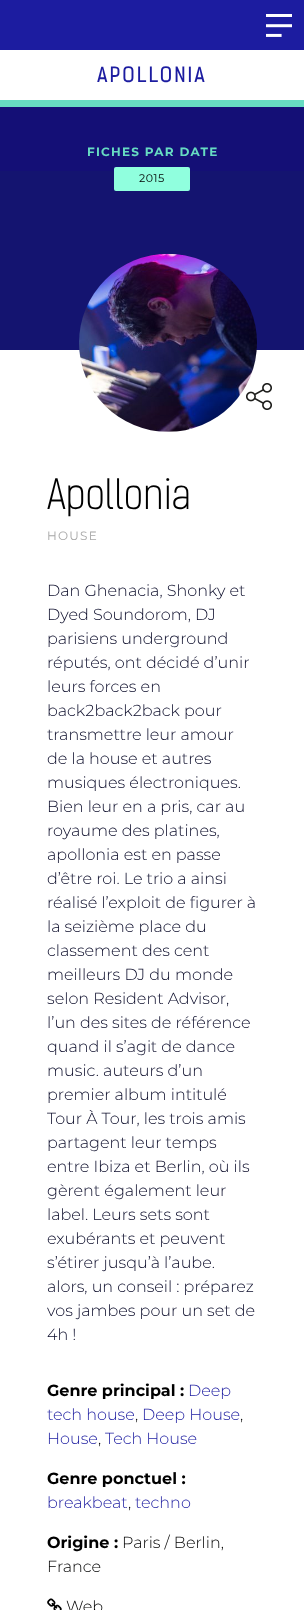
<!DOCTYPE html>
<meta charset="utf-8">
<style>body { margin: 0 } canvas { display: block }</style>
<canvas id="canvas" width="304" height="1610"></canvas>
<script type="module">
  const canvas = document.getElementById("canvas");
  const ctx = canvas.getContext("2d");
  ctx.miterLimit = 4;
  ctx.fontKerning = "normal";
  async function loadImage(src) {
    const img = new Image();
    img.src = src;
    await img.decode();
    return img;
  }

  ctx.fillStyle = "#141470";
  ctx.fillRect(0, 0, 304, 1610);
  ctx.fillStyle = "#140f76";
  ctx.fillRect(0, 107, 304, 64);
  ctx.fillStyle = "#1c1ca0";
  ctx.fillRect(0, 0, 304, 50);
  ctx.drawImage(await loadImage("img1.png"), 266, 14, 26, 23);
  ctx.fillStyle = "#ffffff";
  ctx.fillRect(0, 50, 304, 50);
  ctx.letterSpacing = "2px";
  ctx.font = "20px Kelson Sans";
  ctx.fillStyle = "#1c1ca0";
  ctx.fillText("APOLLONIA", 97, 82);
  ctx.fillStyle = "#67dcc2";
  ctx.fillRect(0, 100, 304, 7);
  ctx.letterSpacing = "1.25px";
  ctx.font = "bold 12px Montserrat";
  ctx.fillText("FICHES PAR DATE", 87, 156);
  ctx.fillStyle = "#90ffde";
  ctx.beginPath();
  ctx.roundRect(114, 167, 76, 24, 2);
  ctx.fill();
  ctx.letterSpacing = "0.5px";
  ctx.font = "11px Montserrat";
  ctx.fillStyle = "#000000";
  ctx.fillText("2015", 139, 182);
  ctx.fillStyle = "#ffffff";
  ctx.fillRect(0, 350, 304, 1260);
  ctx.drawImage(await loadImage("img2.png"), 79, 253, 178, 179);
  ctx.drawImage(await loadImage("img3.png"), 246, 383, 26, 27);
  ctx.letterSpacing = "0px";
  ctx.font = "300 40px Kelson Sans";
  ctx.fillStyle = "#000000";
  ctx.fillText("Apollonia", 47, 509);
  ctx.letterSpacing = "1.25px";
  ctx.font = "12px Montserrat";
  ctx.fillStyle = "#a6a6a6";
  ctx.fillText("HOUSE", 47, 540);
  ctx.letterSpacing = "0px";
  ctx.font = "300 16px Montserrat";
  ctx.fillStyle = "#090a28";
  ctx.fillText("Dan Ghenacia, Shonky et", 47, 596);
  ctx.fillText("Dyed Soundorom, DJ", 47, 620);
  ctx.fillText("parisiens underground", 47, 644);
  ctx.fillText("réputés, ont décidé d’unir", 47, 668);
  ctx.fillText("leurs forces en", 47, 692);
  ctx.fillText("back2back2back pour", 47, 716);
  ctx.fillText("transmettre leur amour", 47, 740);
  ctx.fillText("de la house et autres", 47, 764);
  ctx.fillText("musiques électroniques.", 47, 788);
  ctx.fillText("Bien leur en a pris, car au", 47, 812);
  ctx.fillText("royaume des platines,", 47, 836);
  ctx.fillText("apollonia est en passe", 47, 860);
  ctx.fillText("d’être roi. Le trio a ainsi", 47, 884);
  ctx.fillText("réalisé l’exploit de figurer à", 47, 908);
  ctx.fillText("la seizième place du", 47, 932);
  ctx.fillText("classement des cent", 47, 956);
  ctx.fillText("meilleurs DJ du monde", 47, 980);
  ctx.fillText("selon Resident Advisor,", 47, 1004);
  ctx.fillText("l’un des sites de référence", 47, 1028);
  ctx.fillText("quand il s’agit de dance", 47, 1052);
  ctx.fillText("music. auteurs d’un", 47, 1076);
  ctx.fillText("premier album intitulé", 47, 1100);
  ctx.fillText("Tour À Tour, les trois amis", 47, 1124);
  ctx.fillText("partagent leur temps", 47, 1148);
  ctx.fillText("entre Ibiza et Berlin, où ils", 47, 1172);
  ctx.fillText("gèrent également leur", 47, 1196);
  ctx.fillText("label. Leurs sets sont", 47, 1220);
  ctx.fillText("exubérants et peuvent", 47, 1244);
  ctx.fillText("s’étirer jusqu’à l’aube.", 47, 1268);
  ctx.fillText("alors, un conseil : préparez", 47, 1292);
  ctx.fillText("vos jambes pour un set de", 47, 1316);
  ctx.fillText("4h !", 47, 1340);
  ctx.font = "bold 16px Montserrat";
  ctx.fillStyle = "#000000";
  ctx.fillText("Genre principal :", 47, 1396);
  ctx.font = "300 16px Montserrat";
  ctx.fillStyle = "#1c1ca0";
  ctx.fillText("Deep", 188, 1396);
  ctx.fillText("tech house", 47, 1420);
  ctx.fillStyle = "#000000";
  ctx.fillText(",", 135, 1420);
  ctx.fillStyle = "#1c1ca0";
  ctx.fillText("Deep House", 142, 1420);
  ctx.fillStyle = "#000000";
  ctx.fillText(",", 240, 1420);
  ctx.fillStyle = "#1c1ca0";
  ctx.fillText("House", 47, 1444);
  ctx.fillStyle = "#000000";
  ctx.fillText(",", 98, 1444);
  ctx.fillStyle = "#1c1ca0";
  ctx.fillText("Tech House", 105, 1444);
  ctx.font = "bold 16px Montserrat";
  ctx.fillStyle = "#000000";
  ctx.fillText("Genre ponctuel :", 47, 1484);
  ctx.font = "300 16px Montserrat";
  ctx.fillStyle = "#1c1ca0";
  ctx.fillText("breakbeat", 47, 1508);
  ctx.fillStyle = "#000000";
  ctx.fillText(",", 128, 1508);
  ctx.fillStyle = "#1c1ca0";
  ctx.fillText("techno", 135, 1508);
  ctx.font = "bold 16px Montserrat";
  ctx.fillStyle = "#000000";
  ctx.fillText("Origine :", 47, 1548);
  ctx.font = "300 16px Montserrat";
  ctx.fillText("Paris / Berlin,", 122, 1548);
  ctx.fillText("France", 47, 1572);
  ctx.drawImage(await loadImage("img4.png"), 47, 1598, 15, 12);
  ctx.fillText("Web", 66, 1612);
</script>
